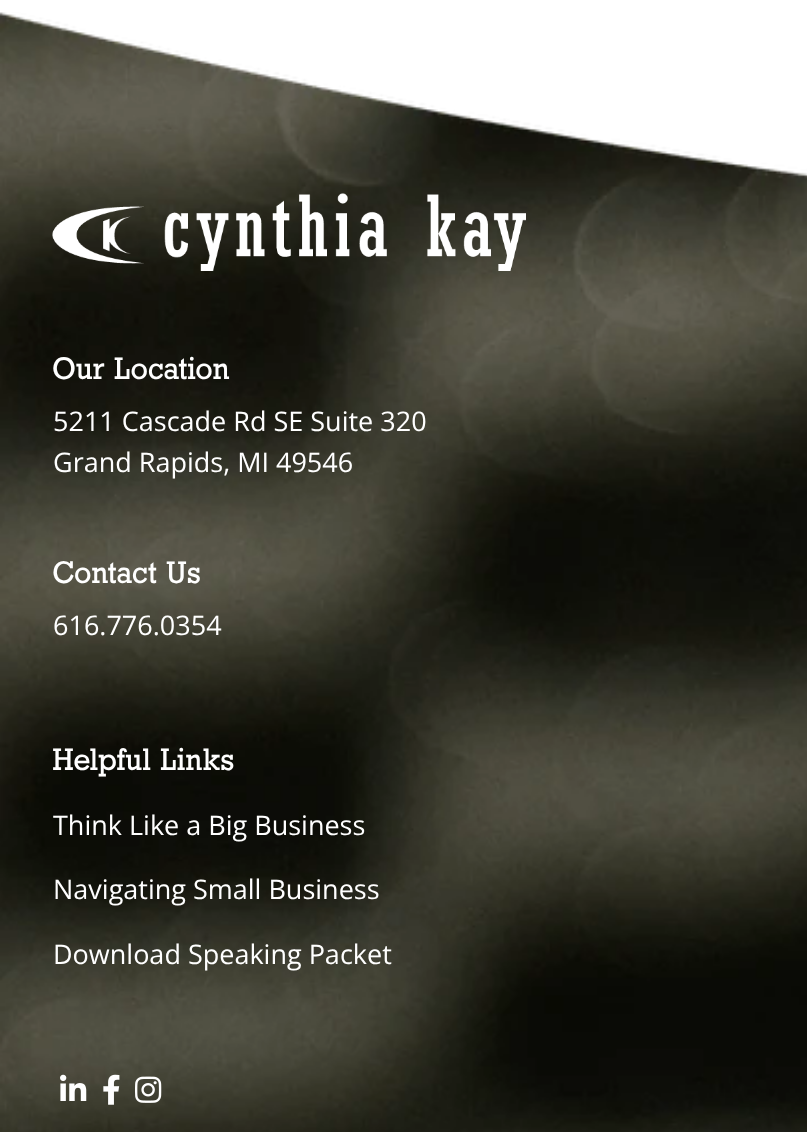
<!DOCTYPE html>
<meta charset="utf-8">
<style>body { margin: 0 } canvas { display: block }</style>
<canvas id="canvas" width="807" height="1132"></canvas>
<script type="module">
  const canvas = document.getElementById("canvas");
  const ctx = canvas.getContext("2d");
  ctx.miterLimit = 4;
  ctx.fontKerning = "normal";
  async function loadImage(src) {
    const img = new Image();
    img.src = src;
    await img.decode();
    return img;
  }

  ctx.fillStyle = "#ffffff";
  ctx.fillRect(0, 0, 807, 1132);
  ctx.drawImage(await loadImage("img1.png"), 0, 12, 807, 1120);
  ctx.drawImage(await loadImage("img2.png"), 52, 193, 474, 78);
  ctx.letterSpacing = "1.25px";
  ctx.font = "30px Rockwell";
  ctx.fillText("Our Location", 53, 379);
  ctx.letterSpacing = "0px";
  ctx.font = "27px Open Sans";
  ctx.fillText("5211 Cascade Rd SE Suite 320", 53, 431);
  ctx.fillText("Grand Rapids, MI 49546", 53, 472);
  ctx.letterSpacing = "1.25px";
  ctx.font = "30px Rockwell";
  ctx.fillText("Contact Us", 53, 583);
  ctx.letterSpacing = "0px";
  ctx.font = "27px Open Sans";
  ctx.fillText("616.776.0354", 53, 635);
  ctx.letterSpacing = "1.25px";
  ctx.font = "30px Rockwell";
  ctx.fillText("Helpful Links", 53, 770);
  ctx.letterSpacing = "0px";
  ctx.font = "27px Open Sans";
  ctx.fillText("Think Like a Big Business", 53, 835);
  ctx.fillText("Navigating Small Business", 53, 899);
  ctx.fillText("Download Speaking Packet", 53, 964);
  ctx.drawImage(await loadImage("img3.png"), 60, 1074, 27, 27);
  ctx.drawImage(await loadImage("img4.png"), 103, 1074, 17, 31);
  ctx.drawImage(await loadImage("img5.png"), 135, 1076, 27, 27);
</script>
